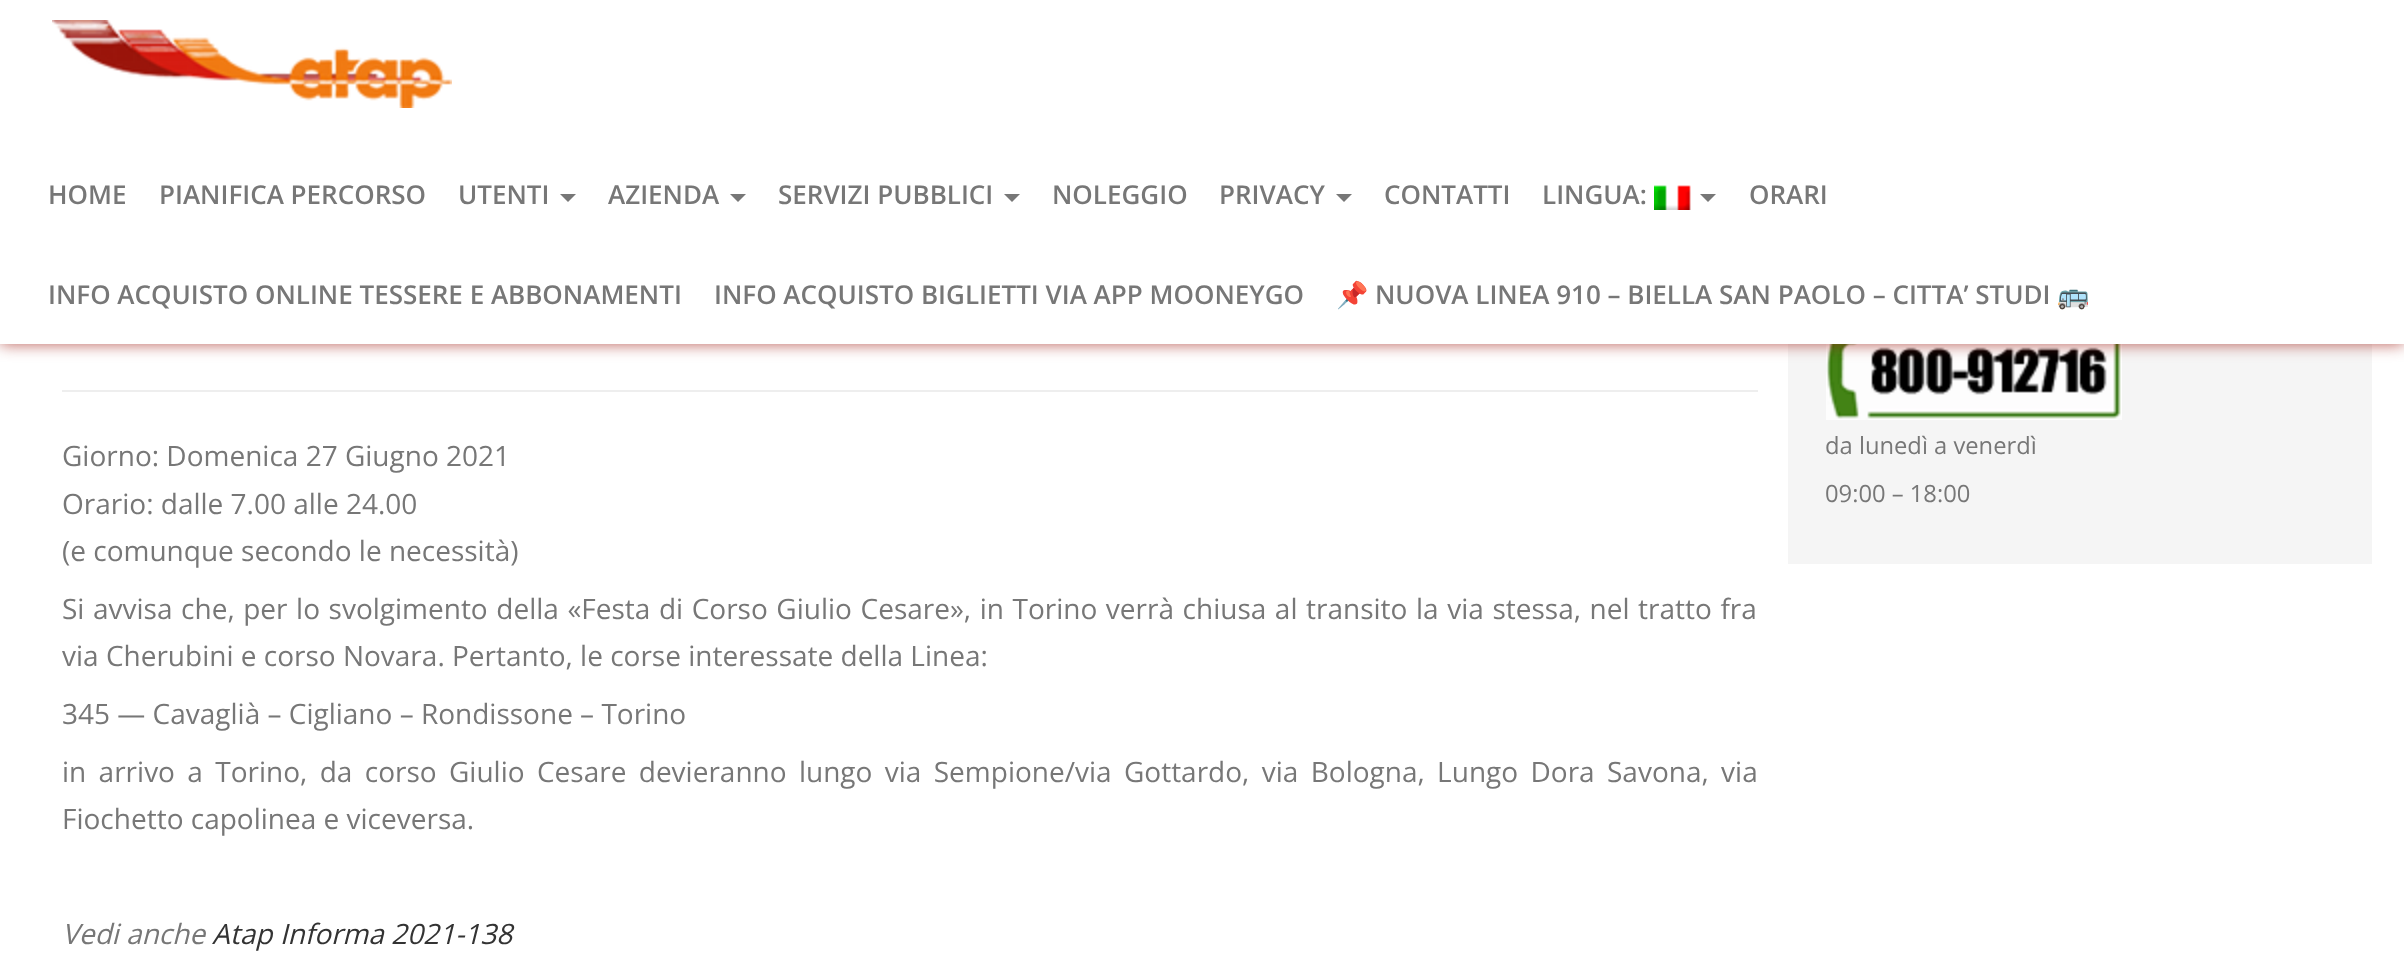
<!DOCTYPE html>
<meta charset="utf-8">
<style>body { margin: 0 } canvas { display: block }</style>
<canvas id="canvas" width="2404" height="956"></canvas>
<script type="module">
  const canvas = document.getElementById("canvas");
  const ctx = canvas.getContext("2d");
  ctx.miterLimit = 4;
  ctx.fontKerning = "normal";
  async function loadImage(src) {
    const img = new Image();
    img.src = src;
    await img.decode();
    return img;
  }

  ctx.fillStyle = "#ffffff";
  ctx.fillRect(0, 0, 2404, 956);
  ctx.fillStyle = "#f5f5f5";
  ctx.fillRect(1788, 344, 584, 220);
  ctx.drawImage(await loadImage("img3.png"), 1826, 344, 296, 76);
  ctx.fillStyle = "rgba(155, 21, 11, 0.7)";
  ctx.filter = "blur(8px)";
  ctx.beginPath();
  ctx.rect(0, 0, 2404, 344);
  ctx.fill();
  ctx.filter = "none";
  ctx.fillStyle = "#ffffff";
  ctx.fillRect(0, 0, 2404, 344);
  ctx.drawImage(await loadImage("img1.png"), 52, 20, 400, 88);
  ctx.font = "600 26px Open Sans";
  ctx.fillStyle = "#777777";
  ctx.fillText("HOME", 48, 204);
  ctx.fillText("PIANIFICA PERCORSO", 159, 204);
  ctx.fillText("UTENTI", 458, 204);
  ctx.beginPath();
  ctx.moveTo(560, 194);
  ctx.lineTo(576, 194);
  ctx.lineTo(568, 202);
  ctx.closePath();
  ctx.fill();
  ctx.fillText("AZIENDA", 608, 204);
  ctx.beginPath();
  ctx.moveTo(730, 194);
  ctx.lineTo(746, 194);
  ctx.lineTo(738, 202);
  ctx.closePath();
  ctx.fill();
  ctx.fillText("SERVIZI PUBBLICI", 778, 204);
  ctx.beginPath();
  ctx.moveTo(1004, 194);
  ctx.lineTo(1020, 194);
  ctx.lineTo(1012, 202);
  ctx.closePath();
  ctx.fill();
  ctx.fillText("NOLEGGIO", 1052, 204);
  ctx.fillText("PRIVACY", 1219, 204);
  ctx.beginPath();
  ctx.moveTo(1336, 194);
  ctx.lineTo(1352, 194);
  ctx.lineTo(1344, 202);
  ctx.closePath();
  ctx.fill();
  ctx.fillText("CONTATTI", 1384, 204);
  ctx.fillText("LINGUA:", 1542, 204);
  ctx.drawImage(await loadImage("img2.png"), 1654, 185, 37, 25);
  ctx.beginPath();
  ctx.moveTo(1700, 194);
  ctx.lineTo(1716, 194);
  ctx.lineTo(1708, 202);
  ctx.closePath();
  ctx.fill();
  ctx.fillText("ORARI", 1749, 204);
  ctx.fillText("INFO ACQUISTO ONLINE TESSERE E ABBONAMENTI", 48, 304);
  ctx.fillText("INFO ACQUISTO BIGLIETTI VIA APP MOONEYGO", 714, 304);
  ctx.font = "bold 26px Noto Color Emoji";
  ctx.fillText("📌", 1336, 304);
  ctx.font = "600 26px Open Sans";
  ctx.fillText("NUOVA LINEA 910 – BIELLA SAN PAOLO – CITTA’ STUDI", 1375, 304);
  ctx.font = "bold 26px Noto Color Emoji";
  ctx.fillText("🚌", 2057, 304);
  ctx.fillStyle = "#eeeeee";
  ctx.fillRect(62, 390, 1696, 2);
  ctx.font = "28px Open Sans";
  ctx.fillStyle = "#777777";
  ctx.fillText("Giorno: Domenica 27 Giugno 2021", 62, 466);
  ctx.fillText("Orario: dalle 7.00 alle 24.00", 62, 514);
  ctx.fillText("(e comunque secondo le necessità)", 62, 561);
  ctx.wordSpacing = "1.3px";
  ctx.fillText("Si avvisa che, per lo svolgimento della «Festa di Corso Giulio Cesare», in Torino verrà chiusa al transito la via stessa, nel tratto fra", 62, 619);
  ctx.wordSpacing = "0px";
  ctx.fillText("via Cherubini e corso Novara. Pertanto, le corse interessate della Linea:", 62, 666);
  ctx.fillText("345 — Cavaglià – Cigliano – Rondissone – Torino", 62, 724);
  ctx.wordSpacing = "5.1px";
  ctx.fillText("in arrivo a Torino, da corso Giulio Cesare devieranno lungo via Sempione/via Gottardo, via Bologna, Lungo Dora Savona, via", 62, 782);
  ctx.wordSpacing = "0px";
  ctx.fillText("Fiochetto capolinea e viceversa.", 62, 829);
  ctx.font = "italic 28px Open Sans";
  ctx.fillText("Vedi anche", 62, 944);
  ctx.fillStyle = "#333333";
  ctx.fillText("Atap Informa 2021-138", 212, 944);
  ctx.font = "23.75px Open Sans";
  ctx.fillStyle = "#777777";
  ctx.fillText("da lunedì a venerdì", 1825, 454);
  ctx.fillText("09:00 – 18:00", 1825, 502);
</script>
